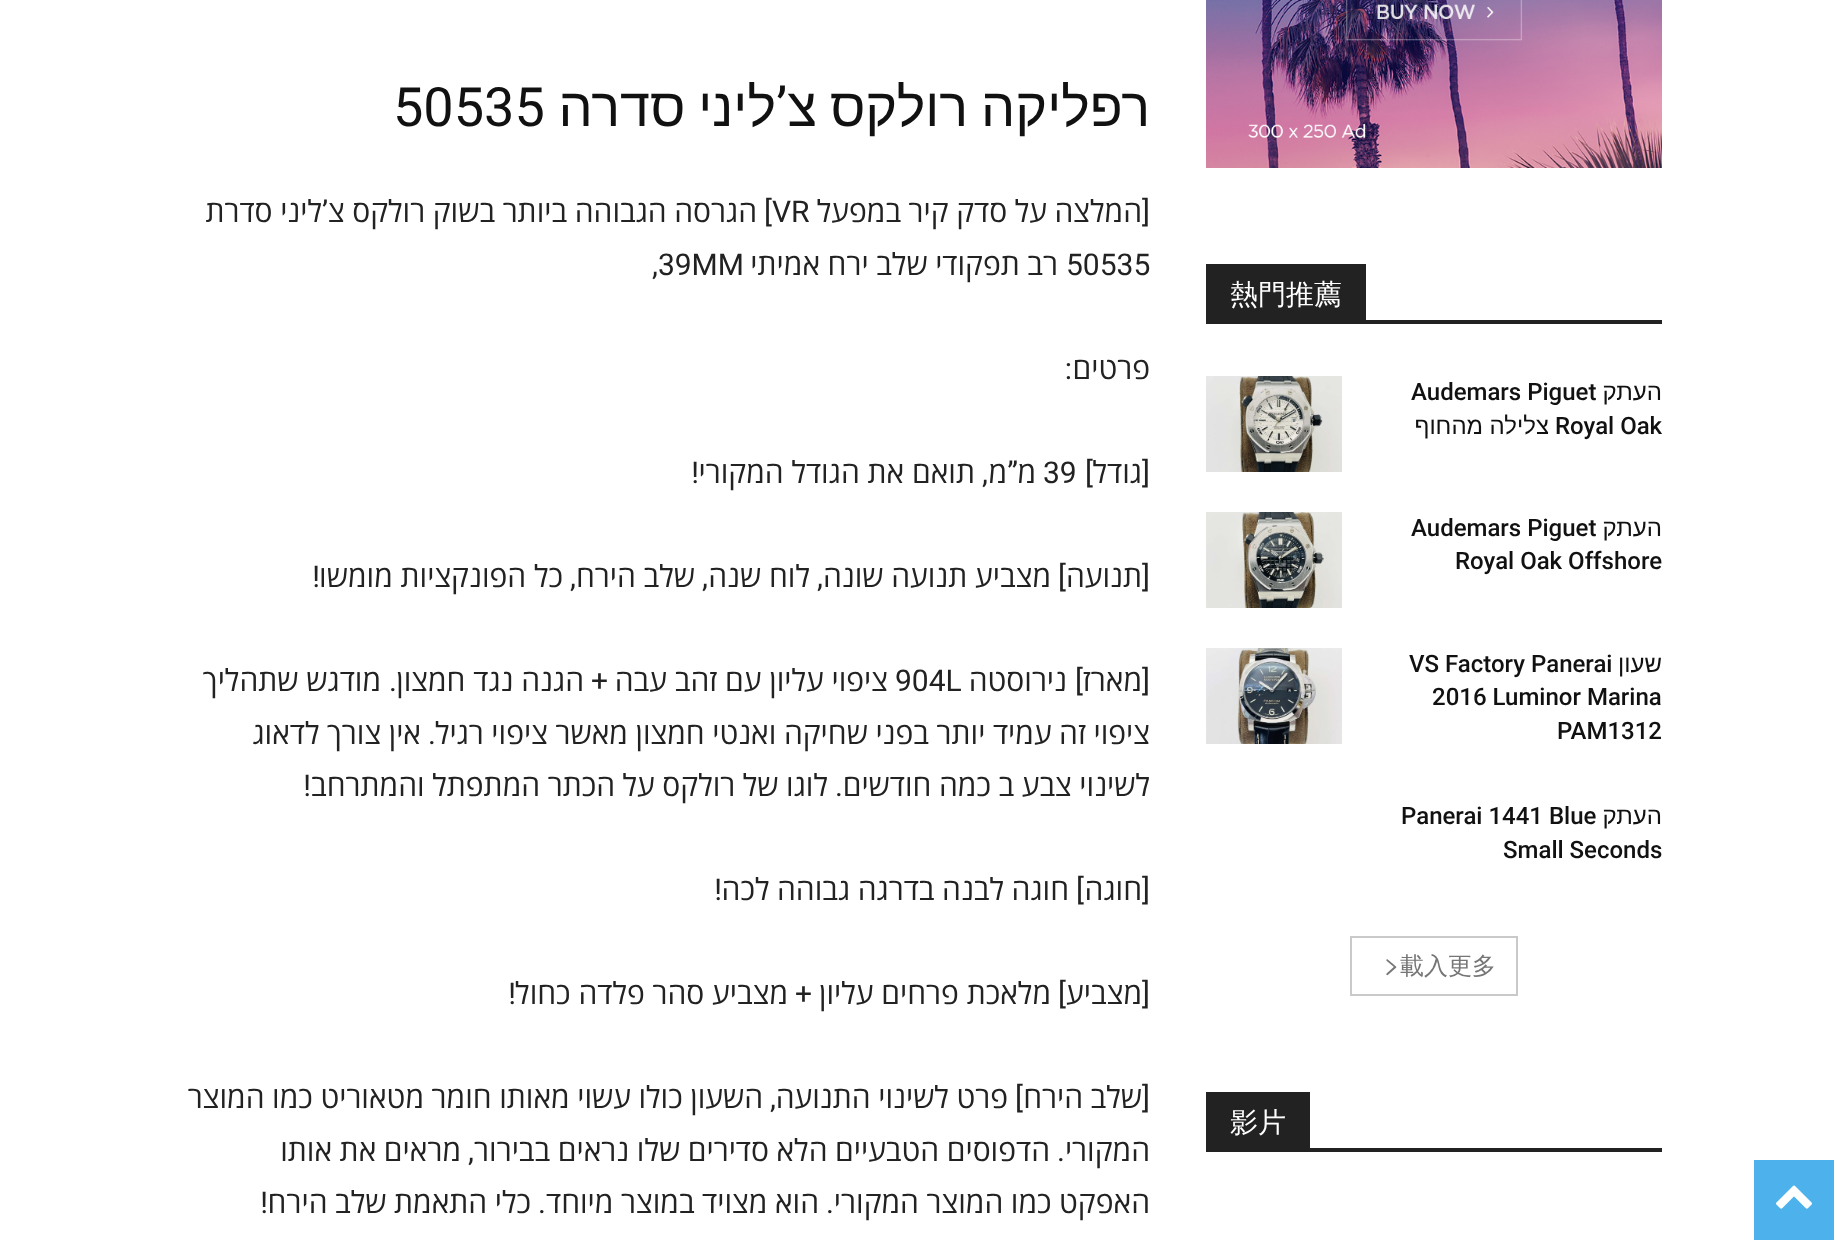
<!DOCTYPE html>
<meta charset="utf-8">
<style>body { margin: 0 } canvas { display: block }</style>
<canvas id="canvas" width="1844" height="1248"></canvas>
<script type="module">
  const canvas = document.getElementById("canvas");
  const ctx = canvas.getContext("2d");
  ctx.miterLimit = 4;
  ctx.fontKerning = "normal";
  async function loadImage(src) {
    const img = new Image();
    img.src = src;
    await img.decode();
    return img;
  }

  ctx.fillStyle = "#ffffff";
  ctx.fillRect(0, 0, 1844, 1248);
  ctx.fillStyle = "#4db2ec";
  ctx.fillRect(1754, 1160, 80, 80);
  ctx.drawImage(await loadImage("img1.png"), 1776, 1185, 36, 24);
  ctx.drawImage(await loadImage("img2.png"), 1206, 0, 456, 168);
  ctx.fillStyle = "#222222";
  ctx.fillRect(1206, 320, 456, 4);
  ctx.fillRect(1206, 264, 160, 56);
  ctx.font = "500 28px WenQuanYi Zen Hei";
  ctx.fillStyle = "#ffffff";
  ctx.fillText("熱門推薦", 1230, 304);
  ctx.direction = "rtl";
  ctx.font = "24px Liberation Sans";
  ctx.fillStyle = "#111111";
  ctx.fillText("העתק", 1662, 400);
  ctx.direction = "ltr";
  ctx.font = "500 24px Roboto";
  ctx.fillText("Audemars Piguet", 1411, 400);
  ctx.fillText("Royal Oak", 1555, 434);
  ctx.wordSpacing = "-0.25px";
  ctx.direction = "rtl";
  ctx.font = "24px Liberation Sans";
  ctx.fillText("צלילה מהחוף", 1549, 434);
  ctx.drawImage(await loadImage("img3.png"), 1206, 376, 136, 96);
  ctx.wordSpacing = "0px";
  ctx.fillText("העתק", 1662, 536);
  ctx.direction = "ltr";
  ctx.font = "500 24px Roboto";
  ctx.fillText("Audemars Piguet", 1411, 536);
  ctx.fillText("Royal Oak Offshore", 1455, 569);
  ctx.drawImage(await loadImage("img4.png"), 1206, 512, 136, 96);
  ctx.direction = "rtl";
  ctx.font = "24px Liberation Sans";
  ctx.fillText("שעון", 1662, 672);
  ctx.direction = "ltr";
  ctx.font = "500 24px Roboto";
  ctx.fillText("VS Factory Panerai", 1409, 672);
  ctx.fillText("2016 Luminor Marina", 1432, 705);
  ctx.fillText("PAM1312", 1557, 739);
  ctx.drawImage(await loadImage("img5.png"), 1206, 648, 136, 96);
  ctx.direction = "rtl";
  ctx.font = "24px Liberation Sans";
  ctx.fillText("העתק", 1662, 824);
  ctx.direction = "ltr";
  ctx.font = "500 24px Roboto";
  ctx.fillText("Panerai 1441 Blue", 1401, 824);
  ctx.fillText("Small Seconds", 1503, 858);
  ctx.strokeStyle = "#c9c9c9";
  ctx.lineWidth = 2;
  ctx.strokeRect(1351, 937, 166, 58);
  ctx.font = "500 24px WenQuanYi Zen Hei";
  ctx.fillStyle = "#767676";
  ctx.fillText("載入更多", 1400, 974);
  ctx.drawImage(await loadImage("img6.png"), 1386, 959, 11, 17);
  ctx.fillStyle = "#222222";
  ctx.fillRect(1206, 1148, 456, 4);
  ctx.fillRect(1206, 1092, 104, 56);
  ctx.font = "500 28px WenQuanYi Zen Hei";
  ctx.fillStyle = "#ffffff";
  ctx.fillText("影片", 1230, 1132);
  ctx.wordSpacing = "-2px";
  ctx.direction = "rtl";
  ctx.font = "54px Liberation Sans";
  ctx.fillStyle = "#111111";
  ctx.fillText("רפליקה רולקס צ", 1150, 126);
  ctx.wordSpacing = "0px";
  ctx.font = "54px Roboto";
  ctx.fillText("’", 787, 126);
  ctx.wordSpacing = "-2px";
  ctx.font = "54px Liberation Sans";
  ctx.fillText("ליני סדרה", 776, 126);
  ctx.wordSpacing = "0px";
  ctx.direction = "ltr";
  ctx.font = "54px Roboto";
  ctx.fillText("50535", 393, 126);
  ctx.direction = "rtl";
  ctx.font = "30px Roboto";
  ctx.fillStyle = "#222222";
  ctx.fillText("[", 1150, 222);
  ctx.wordSpacing = "-0.25px";
  ctx.font = "30px Open Sans";
  ctx.fillText("המלצה על סדק קיר במפעל", 1142, 222);
  ctx.wordSpacing = "0px";
  ctx.direction = "ltr";
  ctx.font = "30px Roboto";
  ctx.fillText("VR", 772, 222);
  ctx.direction = "rtl";
  ctx.fillText("]", 772, 222);
  ctx.wordSpacing = "-0.25px";
  ctx.font = "30px Open Sans";
  ctx.fillText("הגרסה הגבוהה ביותר בשוק רולקס צ", 757, 222);
  ctx.wordSpacing = "0px";
  ctx.font = "30px Roboto";
  ctx.fillText("’", 328, 222);
  ctx.wordSpacing = "-0.25px";
  ctx.font = "30px Open Sans";
  ctx.fillText("ליני סדרת", 322, 222);
  ctx.wordSpacing = "0px";
  ctx.direction = "ltr";
  ctx.font = "30px Roboto";
  ctx.fillText("50535", 1066, 275);
  ctx.wordSpacing = "-0.25px";
  ctx.direction = "rtl";
  ctx.font = "30px Open Sans";
  ctx.fillText("רב תפקודי שלב ירח אמיתי", 1058, 275);
  ctx.wordSpacing = "0px";
  ctx.direction = "ltr";
  ctx.font = "30px Roboto";
  ctx.fillText(",39MM", 652, 275);
  ctx.direction = "rtl";
  ctx.font = "30px Open Sans";
  ctx.fillText("פרטים", 1150, 379);
  ctx.font = "30px Roboto";
  ctx.fillText(":", 1072, 379);
  ctx.fillText("[", 1150, 483);
  ctx.font = "30px Open Sans";
  ctx.fillText("גודל", 1142, 483);
  ctx.font = "30px Roboto";
  ctx.fillText("]", 1093, 483);
  ctx.direction = "ltr";
  ctx.fillText("39", 1043, 483);
  ctx.direction = "rtl";
  ctx.font = "30px Open Sans";
  ctx.fillText("מ", 1036, 483);
  ctx.font = "30px Roboto";
  ctx.fillText("”", 1018, 483);
  ctx.font = "30px Open Sans";
  ctx.fillText("מ", 1007, 483);
  ctx.font = "30px Roboto";
  ctx.fillText(",", 988, 483);
  ctx.font = "30px Open Sans";
  ctx.fillText("תואם את הגודל המקורי", 975, 483);
  ctx.font = "30px Roboto";
  ctx.fillText("!", 699, 483);
  ctx.fillText("[", 1150, 587);
  ctx.font = "30px Open Sans";
  ctx.fillText("תנועה", 1142, 587);
  ctx.font = "30px Roboto";
  ctx.fillText("]", 1066, 587);
  ctx.font = "30px Open Sans";
  ctx.fillText("מצביע תנועה שונה", 1051, 587);
  ctx.font = "30px Roboto";
  ctx.fillText(",", 823, 587);
  ctx.font = "30px Open Sans";
  ctx.fillText("לוח שנה", 810, 587);
  ctx.font = "30px Roboto";
  ctx.fillText(",", 708, 587);
  ctx.font = "30px Open Sans";
  ctx.fillText("שלב הירח", 695, 587);
  ctx.font = "30px Roboto";
  ctx.fillText(",", 576, 587);
  ctx.font = "30px Open Sans";
  ctx.fillText("כל הפונקציות מומשו", 563, 587);
  ctx.font = "30px Roboto";
  ctx.fillText("!", 320, 587);
  ctx.fillText("[", 1150, 691);
  ctx.font = "30px Open Sans";
  ctx.fillText("מארז", 1142, 691);
  ctx.font = "30px Roboto";
  ctx.fillText("]", 1083, 691);
  ctx.font = "30px Open Sans";
  ctx.fillText("נירוסטה", 1067, 691);
  ctx.direction = "ltr";
  ctx.font = "30px Roboto";
  ctx.fillText("904L", 895, 691);
  ctx.direction = "rtl";
  ctx.font = "30px Open Sans";
  ctx.fillText("ציפוי עליון עם זהב עבה", 888, 691);
  ctx.font = "30px Roboto";
  ctx.fillText("+", 608, 691);
  ctx.font = "30px Open Sans";
  ctx.fillText("הגנה נגד חמצון", 584, 691);
  ctx.fillText("מודגש שתהליך", 381, 691);
  ctx.font = "30px Roboto";
  ctx.fillText(".", 397, 691);
  ctx.wordSpacing = "-0.25px";
  ctx.font = "30px Open Sans";
  ctx.fillText("ציפוי זה עמיד יותר בפני שחיקה ואנטי חמצון מאשר ציפוי רגיל", 1150, 744);
  ctx.wordSpacing = "0px";
  ctx.font = "30px Roboto";
  ctx.fillText(".", 436, 744);
  ctx.wordSpacing = "-0.25px";
  ctx.font = "30px Open Sans";
  ctx.fillText("אין צורך לדאוג", 421, 744);
  ctx.fillText("לשינוי צבע ב כמה חודשים", 1150, 796);
  ctx.wordSpacing = "0px";
  ctx.font = "30px Roboto";
  ctx.fillText(".", 843, 796);
  ctx.wordSpacing = "-0.25px";
  ctx.font = "30px Open Sans";
  ctx.fillText("לוגו של רולקס על הכתר המתפתל והמתרחב", 828, 796);
  ctx.wordSpacing = "0px";
  ctx.font = "30px Roboto";
  ctx.fillText("!", 311, 796);
  ctx.fillText("[", 1150, 900);
  ctx.font = "30px Open Sans";
  ctx.fillText("חוגה", 1142, 900);
  ctx.font = "30px Roboto";
  ctx.fillText("]", 1084, 900);
  ctx.wordSpacing = "-0.25px";
  ctx.font = "30px Open Sans";
  ctx.fillText("חוגה לבנה בדרגה גבוהה לכה", 1069, 900);
  ctx.wordSpacing = "0px";
  ctx.font = "30px Roboto";
  ctx.fillText("!", 722, 900);
  ctx.fillText("[", 1150, 1004);
  ctx.font = "30px Open Sans";
  ctx.fillText("מצביע", 1142, 1004);
  ctx.font = "30px Roboto";
  ctx.fillText("]", 1066, 1004);
  ctx.font = "30px Open Sans";
  ctx.fillText("מלאכת פרחים עליון", 1051, 1004);
  ctx.font = "30px Roboto";
  ctx.fillText("+", 812, 1004);
  ctx.font = "30px Open Sans";
  ctx.fillText("מצביע סהר פלדה כחול", 788, 1004);
  ctx.font = "30px Roboto";
  ctx.fillText("!", 516, 1004);
  ctx.fillText("[", 1150, 1108);
  ctx.wordSpacing = "-0.25px";
  ctx.font = "30px Open Sans";
  ctx.fillText("שלב הירח", 1142, 1108);
  ctx.wordSpacing = "0px";
  ctx.font = "30px Roboto";
  ctx.fillText("]", 1023, 1108);
  ctx.wordSpacing = "-0.25px";
  ctx.font = "30px Open Sans";
  ctx.fillText("פרט לשינוי התנועה", 1008, 1108);
  ctx.wordSpacing = "0px";
  ctx.font = "30px Roboto";
  ctx.fillText(",", 776, 1108);
  ctx.wordSpacing = "-0.25px";
  ctx.font = "30px Open Sans";
  ctx.fillText("השעון כולו עשוי מאותו חומר מטאוריט כמו המוצר", 763, 1108);
  ctx.wordSpacing = "0px";
  ctx.fillText("המקורי", 1150, 1161);
  ctx.font = "30px Roboto";
  ctx.fillText(".", 1065, 1161);
  ctx.wordSpacing = "-0.25px";
  ctx.font = "30px Open Sans";
  ctx.fillText("הדפוסים הטבעיים הלא סדירים שלו נראים בבירור", 1050, 1161);
  ctx.wordSpacing = "0px";
  ctx.font = "30px Roboto";
  ctx.fillText(",", 474, 1161);
  ctx.wordSpacing = "-0.25px";
  ctx.font = "30px Open Sans";
  ctx.fillText("מראים את אותו", 461, 1161);
  ctx.fillText("האפקט כמו המוצר המקורי", 1150, 1213);
  ctx.wordSpacing = "0px";
  ctx.font = "30px Roboto";
  ctx.fillText(".", 834, 1213);
  ctx.wordSpacing = "-0.25px";
  ctx.font = "30px Open Sans";
  ctx.fillText("הוא מצויד במוצר מיוחד", 819, 1213);
  ctx.wordSpacing = "0px";
  ctx.font = "30px Roboto";
  ctx.fillText(".", 546, 1213);
  ctx.wordSpacing = "-0.25px";
  ctx.font = "30px Open Sans";
  ctx.fillText("כלי התאמת שלב הירח", 531, 1213);
  ctx.wordSpacing = "0px";
  ctx.font = "30px Roboto";
  ctx.fillText("!", 268, 1213);
</script>
